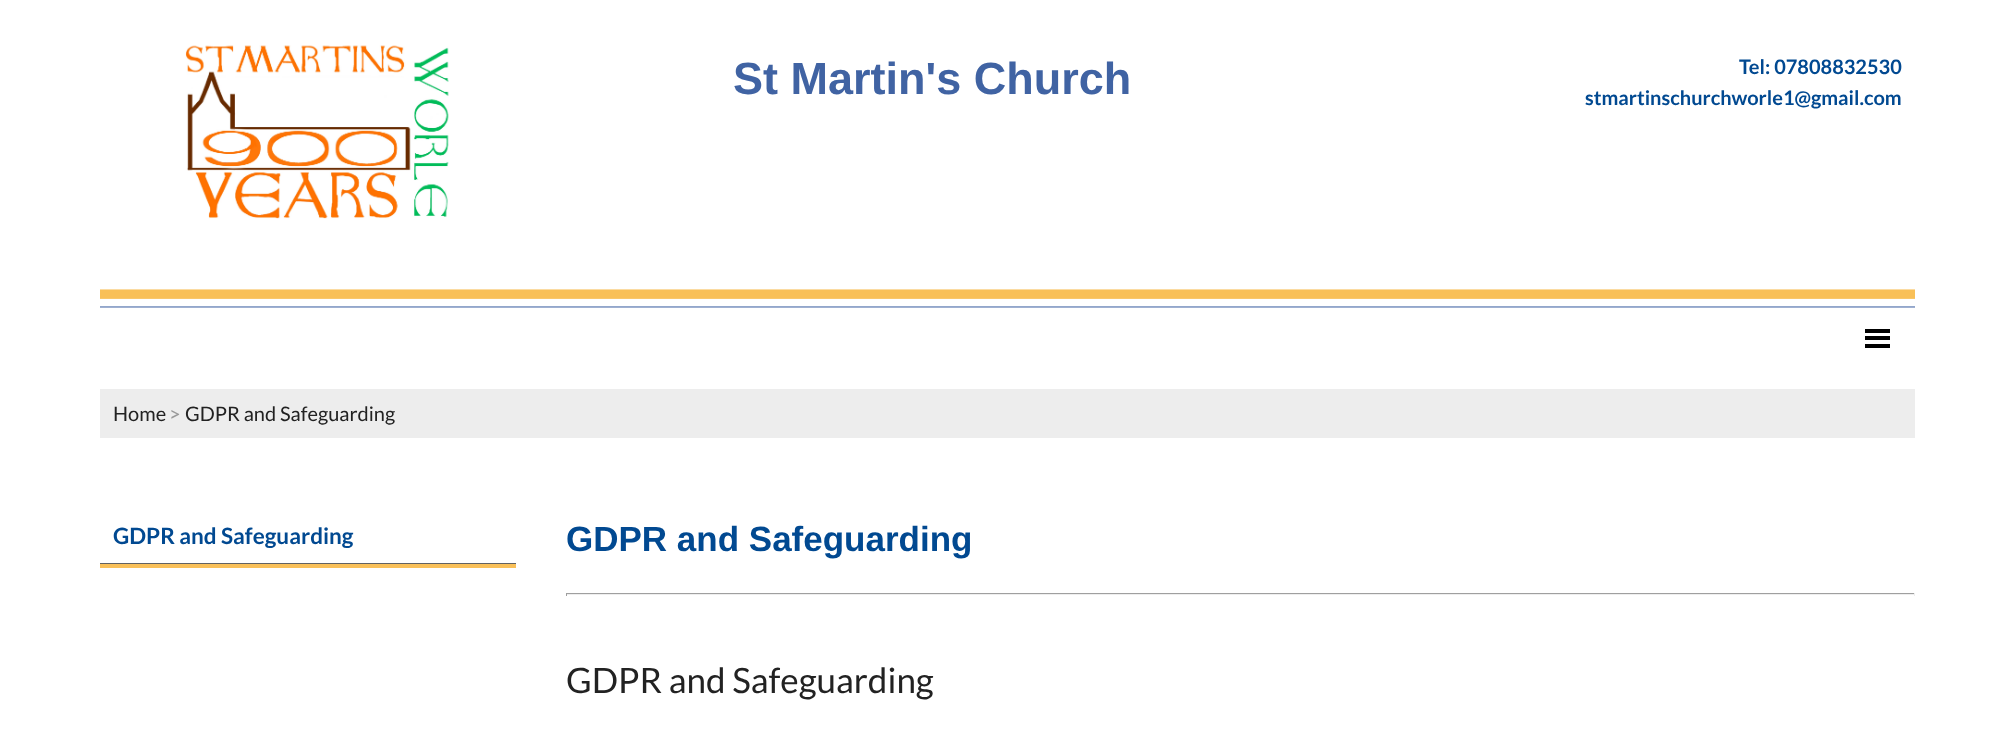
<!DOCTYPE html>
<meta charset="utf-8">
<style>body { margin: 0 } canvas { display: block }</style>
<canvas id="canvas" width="2015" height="741"></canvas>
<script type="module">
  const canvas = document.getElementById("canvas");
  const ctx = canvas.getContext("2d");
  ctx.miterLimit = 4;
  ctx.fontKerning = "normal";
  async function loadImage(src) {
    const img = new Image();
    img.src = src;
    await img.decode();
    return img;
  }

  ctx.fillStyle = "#ffffff";
  ctx.fillRect(0, 0, 2015, 741);
  ctx.drawImage(await loadImage("img1.png"), 185, 45, 264, 174);
  ctx.font = "bold 45px Liberation Sans";
  ctx.fillStyle = "#4063a3";
  ctx.fillText("St Martin's Church", 733, 94);
  ctx.font = "bold 20px Lato";
  ctx.fillStyle = "#014991";
  ctx.fillText("Tel: 07808832530", 1739, 74);
  ctx.fillText("stmartinschurchworle1@gmail.com", 1585, 105);
  ctx.drawImage(await loadImage("img2.png"), 100, 289, 1815, 19);
  ctx.fillStyle = "#000000";
  ctx.fillRect(1865, 329, 25, 4);
  ctx.fillRect(1865, 336, 25, 4);
  ctx.fillRect(1865, 344, 25, 4);
  ctx.fillStyle = "#ededed";
  ctx.fillRect(100, 389, 1815, 49);
  ctx.font = "20px Lato";
  ctx.fillStyle = "#222222";
  ctx.fillText("Home", 113, 421);
  ctx.fillStyle = "#999999";
  ctx.fillText(">", 169, 421);
  ctx.fillStyle = "#222222";
  ctx.fillText("GDPR and Safeguarding", 185, 421);
  ctx.fillStyle = "#f9c059";
  ctx.fillRect(100, 564, 416, 4);
  ctx.fillStyle = "#626262";
  ctx.fillRect(100, 563, 416, 1);
  ctx.font = "bold 22.5px Lato";
  ctx.fillStyle = "#014991";
  ctx.fillText("GDPR and Safeguarding", 113, 544);
  ctx.font = "bold 35px Liberation Sans";
  ctx.fillText("GDPR and Safeguarding", 566, 551);
  ctx.fillStyle = "#9f9f9f";
  ctx.fillRect(566, 593, 1349, 1);
  ctx.fillStyle = "#eeeeee";
  ctx.fillRect(1914, 593, 1, 3);
  ctx.fillRect(566, 594, 1349, 1);
  ctx.fillStyle = "#9f9f9f";
  ctx.fillRect(566, 593, 1, 3);
  ctx.font = "35px Lato";
  ctx.fillStyle = "#222222";
  ctx.fillText("GDPR and Safeguarding", 566, 693);
</script>
